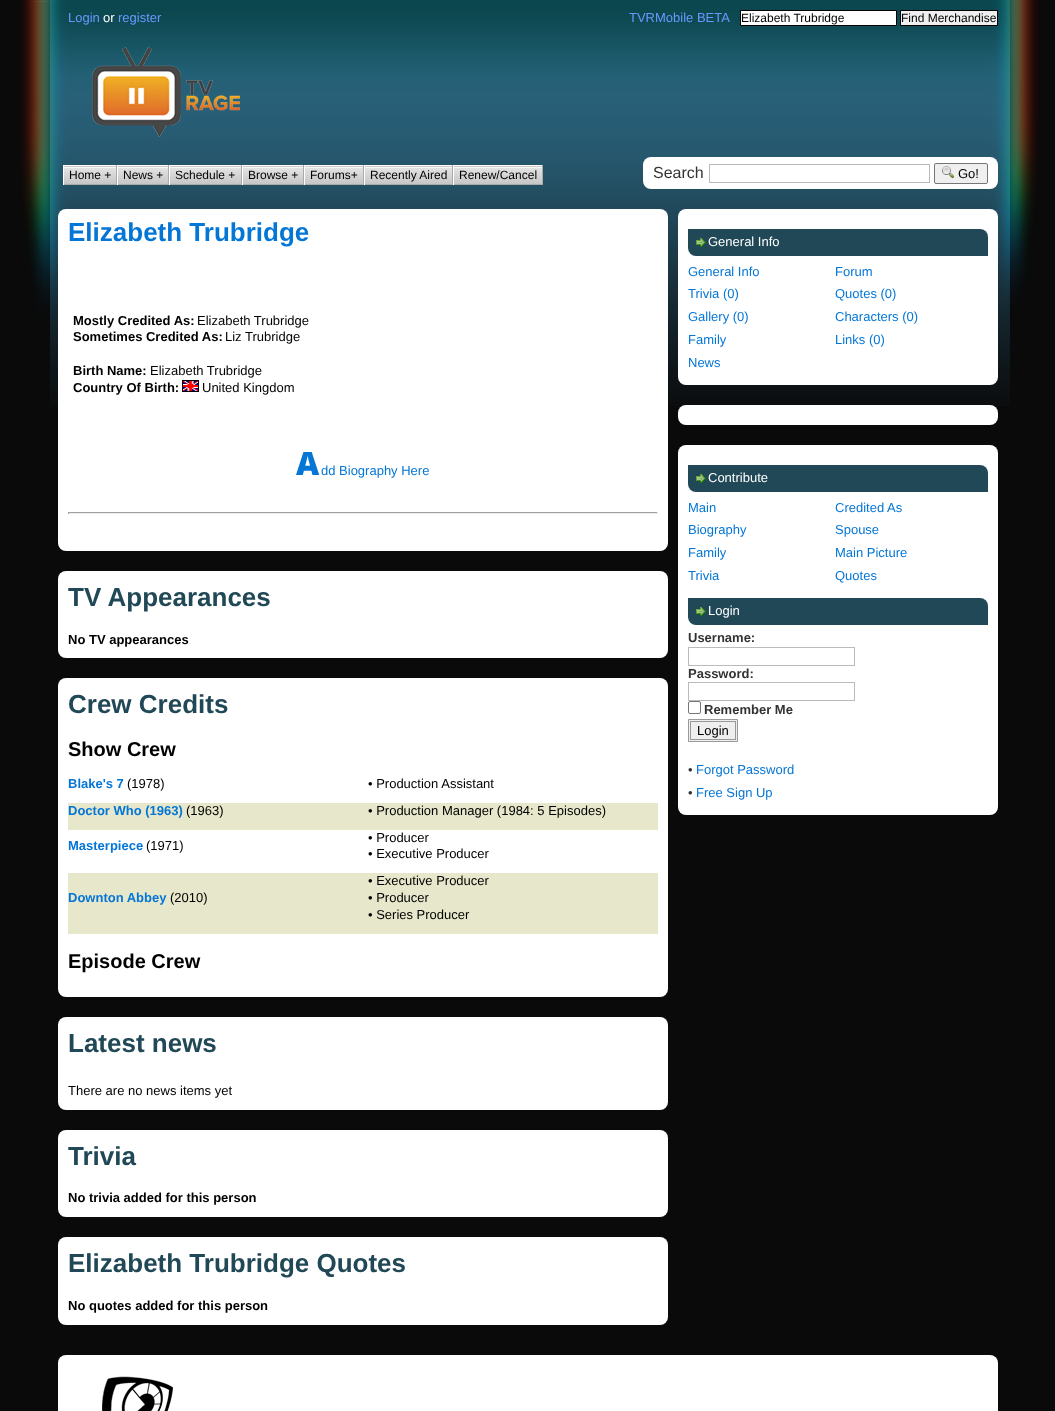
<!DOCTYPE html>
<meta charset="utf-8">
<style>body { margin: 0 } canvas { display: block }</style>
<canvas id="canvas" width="1055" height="1411"></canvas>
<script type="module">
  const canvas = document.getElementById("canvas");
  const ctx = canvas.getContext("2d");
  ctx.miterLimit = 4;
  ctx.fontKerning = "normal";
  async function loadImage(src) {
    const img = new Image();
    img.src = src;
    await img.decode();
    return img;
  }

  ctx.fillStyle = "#0a0a0a";
  ctx.fillRect(0, 0, 1055, 1411);
  ctx.drawImage(await loadImage("img1.png"), 20, 0, 1019, 406);
  ctx.font = "13px Liberation Sans";
  ctx.fillStyle = "#6699ff";
  ctx.fillText("Login", 68, 22);
  ctx.fillStyle = "#ffffff";
  ctx.fillText("or", 103, 22);
  ctx.fillStyle = "#6699ff";
  ctx.fillText("register", 118, 22);
  ctx.fillText("TVRMobile BETA", 629, 22);
  ctx.fillStyle = "#ffffff";
  ctx.beginPath();
  ctx.rect(740.5, 10.5, 156, 15);
  ctx.fill();
  ctx.strokeStyle = "#000000";
  ctx.stroke();
  ctx.font = "12px Liberation Sans";
  ctx.fillStyle = "#000000";
  ctx.fillText("Elizabeth Trubridge", 741, 22);
  ctx.fillStyle = "#efefef";
  ctx.beginPath();
  ctx.rect(900.5, 10.5, 97, 15);
  ctx.fill();
  ctx.stroke();
  ctx.fillStyle = "#000000";
  ctx.fillText("Find Merchandise", 901, 22);
  ctx.drawImage(await loadImage("img2.png"), 92, 47, 148, 90);
  ctx.drawImage(await loadImage("img3.png"), 64, 166, 52, 18);
  ctx.fillText("Home +", 69, 179);
  ctx.fillStyle = "#ffffff";
  ctx.fillRect(63, 165, 480, 1);
  ctx.fillStyle = "#aaaaaa";
  ctx.fillRect(116, 165, 1, 20);
  ctx.fillRect(63, 184, 54, 1);
  ctx.fillStyle = "#ffffff";
  ctx.fillRect(63, 165, 1, 20);
  ctx.drawImage(await loadImage("img4.png"), 118, 166, 50, 18);
  ctx.fillStyle = "#000000";
  ctx.fillText("News +", 123, 179);
  ctx.fillStyle = "#aaaaaa";
  ctx.fillRect(168, 165, 1, 20);
  ctx.fillRect(117, 184, 52, 1);
  ctx.fillStyle = "#ffffff";
  ctx.fillRect(117, 165, 1, 20);
  ctx.drawImage(await loadImage("img5.png"), 170, 166, 71, 18);
  ctx.fillStyle = "#000000";
  ctx.fillText("Schedule +", 175, 179);
  ctx.fillStyle = "#aaaaaa";
  ctx.fillRect(241, 165, 1, 20);
  ctx.fillRect(169, 184, 73, 1);
  ctx.fillStyle = "#ffffff";
  ctx.fillRect(169, 165, 1, 20);
  ctx.drawImage(await loadImage("img6.png"), 243, 166, 60, 18);
  ctx.fillStyle = "#000000";
  ctx.fillText("Browse +", 248, 179);
  ctx.fillStyle = "#aaaaaa";
  ctx.fillRect(303, 165, 1, 20);
  ctx.fillRect(242, 184, 62, 1);
  ctx.fillStyle = "#ffffff";
  ctx.fillRect(242, 165, 1, 20);
  ctx.drawImage(await loadImage("img7.png"), 305, 166, 58, 18);
  ctx.fillStyle = "#000000";
  ctx.fillText("Forums+", 310, 179);
  ctx.fillStyle = "#aaaaaa";
  ctx.fillRect(363, 165, 1, 20);
  ctx.fillRect(304, 184, 60, 1);
  ctx.fillStyle = "#ffffff";
  ctx.fillRect(304, 165, 1, 20);
  ctx.drawImage(await loadImage("img8.png"), 365, 166, 87, 18);
  ctx.fillStyle = "#000000";
  ctx.fillText("Recently Aired", 370, 179);
  ctx.fillStyle = "#aaaaaa";
  ctx.fillRect(452, 165, 1, 20);
  ctx.fillRect(364, 184, 89, 1);
  ctx.fillStyle = "#ffffff";
  ctx.fillRect(364, 165, 1, 20);
  ctx.drawImage(await loadImage("img9.png"), 454, 166, 88, 18);
  ctx.fillStyle = "#000000";
  ctx.fillText("Renew/Cancel", 459, 179);
  ctx.fillStyle = "#aaaaaa";
  ctx.fillRect(542, 165, 1, 20);
  ctx.fillRect(453, 184, 90, 1);
  ctx.fillStyle = "#ffffff";
  ctx.fillRect(453, 165, 1, 20);
  ctx.beginPath();
  ctx.roundRect(643, 157, 355, 32, 8);
  ctx.fill();
  ctx.font = "16px Liberation Sans";
  ctx.fillStyle = "#333333";
  ctx.fillText("Search", 653, 178);
  ctx.strokeStyle = "#bbbbbb";
  ctx.strokeRect(709.5, 164.5, 220, 18);
  ctx.fillStyle = "#efefef";
  ctx.beginPath();
  ctx.roundRect(934.5, 163.5, 53, 20, 1.5);
  ctx.fill();
  ctx.strokeStyle = "#767676";
  ctx.stroke();
  ctx.drawImage(await loadImage("img10.png"), 942, 166, 12, 12);
  ctx.font = "13px Liberation Sans";
  ctx.fillStyle = "#000000";
  ctx.fillText("Go!", 958, 178);
  ctx.fillStyle = "#ffffff";
  ctx.beginPath();
  ctx.roundRect(58, 209, 610, 342, 8);
  ctx.fill();
  ctx.font = "bold 26px Liberation Sans";
  ctx.fillStyle = "#0476d6";
  ctx.fillText("Elizabeth Trubridge", 68, 241);
  ctx.font = "bold 13px Liberation Sans";
  ctx.fillStyle = "#000000";
  ctx.fillText("Mostly Credited As:", 73, 325);
  ctx.font = "13px Liberation Sans";
  ctx.fillText("Elizabeth Trubridge", 197, 325);
  ctx.font = "bold 13px Liberation Sans";
  ctx.fillText("Sometimes Credited As:", 73, 341);
  ctx.font = "13px Liberation Sans";
  ctx.fillText("Liz Trubridge", 225, 341);
  ctx.font = "bold 13px Liberation Sans";
  ctx.fillText("Birth Name:", 73, 375);
  ctx.font = "13px Liberation Sans";
  ctx.fillText("Elizabeth Trubridge", 150, 375);
  ctx.strokeStyle = "#000000";
  ctx.strokeRect(182.5, 380.5, 16, 11);
  ctx.font = "bold 13px Liberation Sans";
  ctx.fillText("Country Of Birth:", 73, 392);
  ctx.drawImage(await loadImage("img11.png"), 183, 381, 15, 10);
  ctx.font = "13px Liberation Sans";
  ctx.fillText("United Kingdom", 202, 392);
  ctx.letterSpacing = "2px";
  ctx.font = "900 32px Noto Sans";
  ctx.fillStyle = "#0476d6";
  ctx.fillText("A", 296, 475);
  ctx.letterSpacing = "0px";
  ctx.font = "13px Liberation Sans";
  ctx.fillText("dd Biography Here", 321, 475);
  ctx.fillStyle = "#9f9f9f";
  ctx.fillRect(68, 512, 590, 1);
  ctx.fillStyle = "#eeeeee";
  ctx.fillRect(657, 512, 1, 2);
  ctx.fillRect(68, 513, 590, 1);
  ctx.fillStyle = "#9f9f9f";
  ctx.fillRect(68, 512, 1, 2);
  ctx.fillStyle = "#ffffff";
  ctx.beginPath();
  ctx.roundRect(58, 571, 610, 87, 8);
  ctx.fill();
  ctx.font = "bold 26px Liberation Sans";
  ctx.fillStyle = "#214856";
  ctx.fillText("TV Appearances", 68, 606);
  ctx.font = "bold 13px Liberation Sans";
  ctx.fillStyle = "#000000";
  ctx.fillText("No TV appearances", 68, 644);
  ctx.fillStyle = "#ffffff";
  ctx.beginPath();
  ctx.roundRect(58, 678, 610, 319, 8);
  ctx.fill();
  ctx.font = "bold 26px Liberation Sans";
  ctx.fillStyle = "#214856";
  ctx.fillText("Crew Credits", 68, 713);
  ctx.font = "bold 20px Liberation Sans";
  ctx.fillStyle = "#000000";
  ctx.fillText("Show Crew", 68, 756);
  ctx.font = "bold 13px Liberation Sans";
  ctx.fillStyle = "#0476d6";
  ctx.fillText("Blake's 7", 68, 788);
  ctx.font = "13px Liberation Sans";
  ctx.fillStyle = "#000000";
  ctx.fillText("(1978)", 127, 788);
  ctx.fillText("• Production Assistant", 368, 788);
  ctx.fillStyle = "#e7e7cb";
  ctx.fillRect(68, 803, 590, 27);
  ctx.font = "bold 13px Liberation Sans";
  ctx.fillStyle = "#0476d6";
  ctx.fillText("Doctor Who (1963)", 68, 815);
  ctx.font = "13px Liberation Sans";
  ctx.fillStyle = "#000000";
  ctx.fillText("(1963)", 186, 815);
  ctx.fillText("• Production Manager (1984: 5 Episodes)", 368, 815);
  ctx.font = "bold 13px Liberation Sans";
  ctx.fillStyle = "#0476d6";
  ctx.fillText("Masterpiece", 68, 850);
  ctx.font = "13px Liberation Sans";
  ctx.fillStyle = "#000000";
  ctx.fillText("(1971)", 146, 850);
  ctx.fillText("• Producer", 368, 842);
  ctx.fillText("• Executive Producer", 368, 858);
  ctx.fillStyle = "#e7e7cb";
  ctx.fillRect(68, 873, 590, 61);
  ctx.font = "bold 13px Liberation Sans";
  ctx.fillStyle = "#0476d6";
  ctx.fillText("Downton Abbey", 68, 902);
  ctx.font = "13px Liberation Sans";
  ctx.fillStyle = "#000000";
  ctx.fillText("(2010)", 170, 902);
  ctx.fillText("• Executive Producer", 368, 885);
  ctx.fillText("• Producer", 368, 902);
  ctx.fillText("• Series Producer", 368, 919);
  ctx.font = "bold 20px Liberation Sans";
  ctx.fillText("Episode Crew", 68, 968);
  ctx.fillStyle = "#ffffff";
  ctx.beginPath();
  ctx.roundRect(58, 1017, 610, 93, 8);
  ctx.fill();
  ctx.font = "bold 26px Liberation Sans";
  ctx.fillStyle = "#214856";
  ctx.fillText("Latest news", 68, 1052);
  ctx.font = "13px Liberation Sans";
  ctx.fillStyle = "#000000";
  ctx.fillText("There are no news items yet", 68, 1095);
  ctx.fillStyle = "#ffffff";
  ctx.beginPath();
  ctx.roundRect(58, 1130, 610, 87, 8);
  ctx.fill();
  ctx.font = "bold 26px Liberation Sans";
  ctx.fillStyle = "#214856";
  ctx.fillText("Trivia", 68, 1165);
  ctx.font = "bold 13px Liberation Sans";
  ctx.fillStyle = "#000000";
  ctx.fillText("No trivia added for this person", 68, 1202);
  ctx.fillStyle = "#ffffff";
  ctx.beginPath();
  ctx.roundRect(58, 1237, 610, 88, 8);
  ctx.fill();
  ctx.font = "bold 26px Liberation Sans";
  ctx.fillStyle = "#214856";
  ctx.fillText("Elizabeth Trubridge Quotes", 68, 1272);
  ctx.font = "bold 13px Liberation Sans";
  ctx.fillStyle = "#000000";
  ctx.fillText("No quotes added for this person", 68, 1310);
  ctx.fillStyle = "#ffffff";
  ctx.beginPath();
  ctx.roundRect(678, 209, 320, 176, 8);
  ctx.fill();
  ctx.fillStyle = "#214856";
  ctx.beginPath();
  ctx.roundRect(688, 229, 300, 27, [0, 8, 0, 8]);
  ctx.fill();
  ctx.drawImage(await loadImage("img12.png"), 696, 238, 10, 9);
  ctx.font = "13px Liberation Sans";
  ctx.fillStyle = "#ffffff";
  ctx.fillText("General Info", 708, 246);
  ctx.fillStyle = "#0476d6";
  ctx.fillText("General Info", 688, 276);
  ctx.fillText("Forum", 835, 276);
  ctx.fillText("Trivia (0)", 688, 298);
  ctx.fillText("Quotes (0)", 835, 298);
  ctx.fillText("Gallery (0)", 688, 321);
  ctx.fillText("Characters (0)", 835, 321);
  ctx.fillText("Family", 688, 344);
  ctx.fillText("Links (0)", 835, 344);
  ctx.fillText("News", 688, 367);
  ctx.fillStyle = "#ffffff";
  ctx.beginPath();
  ctx.roundRect(678, 405, 320, 20, 8);
  ctx.fill();
  ctx.beginPath();
  ctx.roundRect(678, 445, 320, 370, 8);
  ctx.fill();
  ctx.fillStyle = "#214856";
  ctx.beginPath();
  ctx.roundRect(688, 465, 300, 27, [0, 8, 0, 8]);
  ctx.fill();
  ctx.drawImage(await loadImage("img12.png"), 696, 474, 10, 9);
  ctx.fillStyle = "#ffffff";
  ctx.fillText("Contribute", 708, 482);
  ctx.fillStyle = "#0476d6";
  ctx.fillText("Main", 688, 512);
  ctx.fillText("Credited As", 835, 512);
  ctx.fillText("Biography", 688, 534);
  ctx.fillText("Spouse", 835, 534);
  ctx.fillText("Family", 688, 557);
  ctx.fillText("Main Picture", 835, 557);
  ctx.fillText("Trivia", 688, 580);
  ctx.fillText("Quotes", 835, 580);
  ctx.fillStyle = "#214856";
  ctx.beginPath();
  ctx.roundRect(688, 598, 300, 27, [0, 8, 0, 8]);
  ctx.fill();
  ctx.drawImage(await loadImage("img12.png"), 696, 607, 10, 9);
  ctx.fillStyle = "#ffffff";
  ctx.fillText("Login", 708, 615);
  ctx.font = "bold 13px Liberation Sans";
  ctx.fillStyle = "#333333";
  ctx.fillText("Username:", 688, 642);
  ctx.strokeStyle = "#bbbbbb";
  ctx.strokeRect(688.5, 647.5, 166, 18);
  ctx.fillText("Password:", 688, 678);
  ctx.strokeRect(688.5, 682.5, 166, 18);
  ctx.beginPath();
  ctx.roundRect(688.5, 701.5, 12, 12, 1.5);
  ctx.strokeStyle = "#767676";
  ctx.stroke();
  ctx.fillText("Remember Me", 704, 714);
  ctx.fillStyle = "#efefef";
  ctx.beginPath();
  ctx.rect(688.5, 719.5, 49, 22);
  ctx.fill();
  ctx.strokeStyle = "#999999";
  ctx.stroke();
  ctx.strokeRect(690.5, 721.5, 45, 18);
  ctx.font = "13px Liberation Sans";
  ctx.fillStyle = "#000000";
  ctx.fillText("Login", 697, 735);
  ctx.fillStyle = "#333333";
  ctx.fillText("•", 688, 774);
  ctx.fillStyle = "#0476d6";
  ctx.fillText("Forgot Password", 696, 774);
  ctx.fillStyle = "#333333";
  ctx.fillText("•", 688, 797);
  ctx.fillStyle = "#0476d6";
  ctx.fillText("Free Sign Up", 696, 797);
  ctx.fillStyle = "#ffffff";
  ctx.beginPath();
  ctx.roundRect(58, 1355, 940, 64, 8);
  ctx.fill();
  ctx.drawImage(await loadImage("img13.png"), 102, 1376, 71, 35);
</script>
